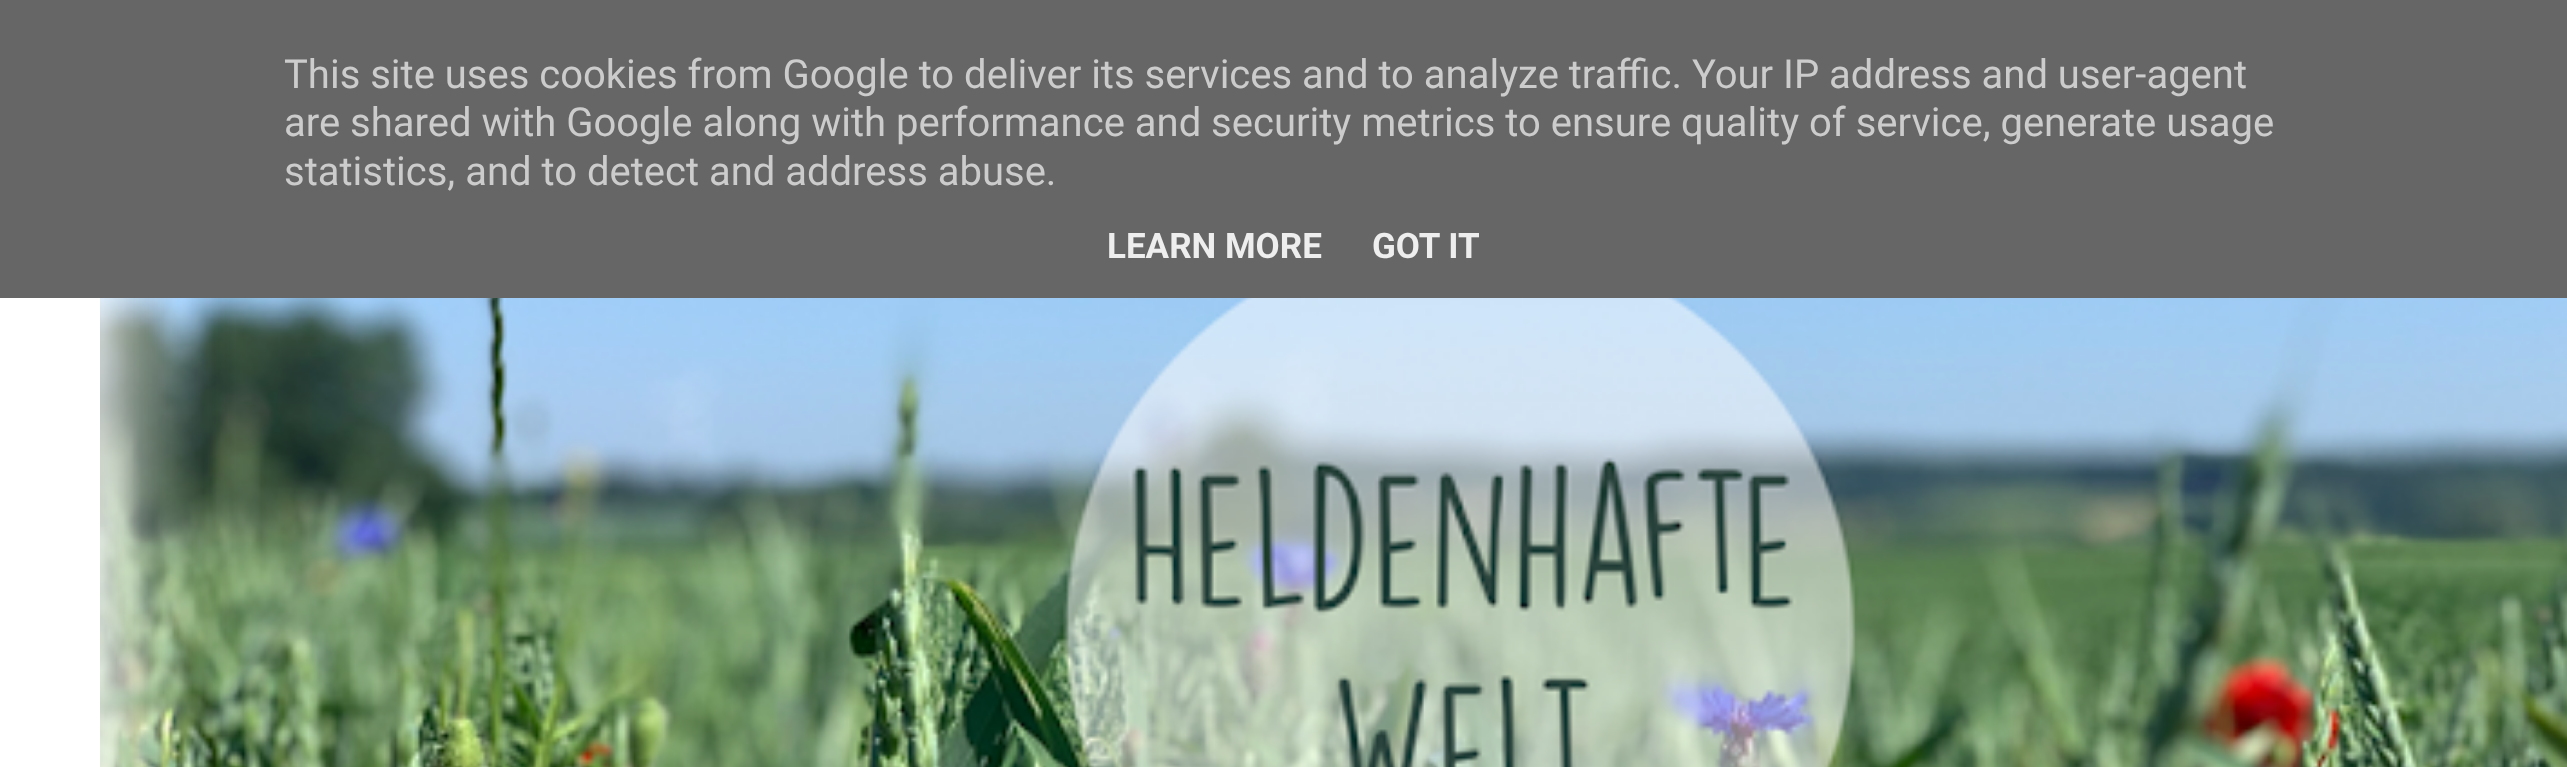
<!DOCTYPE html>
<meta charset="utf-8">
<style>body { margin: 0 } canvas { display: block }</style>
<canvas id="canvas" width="2567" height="767"></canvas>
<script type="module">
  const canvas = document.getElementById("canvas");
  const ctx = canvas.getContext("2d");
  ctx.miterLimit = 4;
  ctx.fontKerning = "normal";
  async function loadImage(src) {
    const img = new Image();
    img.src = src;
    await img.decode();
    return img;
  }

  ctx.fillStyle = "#ffffff";
  ctx.fillRect(0, 0, 2567, 767);
  ctx.fillStyle = "#666666";
  ctx.fillRect(0, 0, 2567, 298);
  ctx.font = "40px Roboto";
  ctx.fillStyle = "#cccccc";
  ctx.fillText("This site uses cookies from Google to deliver its services and to analyze traffic. Your IP address and user-agent", 284, 88);
  ctx.fillText("are shared with Google along with performance and security metrics to ensure quality of service, generate usage", 284, 136);
  ctx.fillText("statistics, and to detect and address abuse.", 284, 185);
  ctx.font = "bold 35px Roboto";
  ctx.fillStyle = "#eeeeee";
  ctx.fillText("LEARN MORE", 1107, 258);
  ctx.fillText("GOT IT", 1372, 258);
  ctx.drawImage(await loadImage("img1.png"), 100, 298, 2467, 469);
</script>
